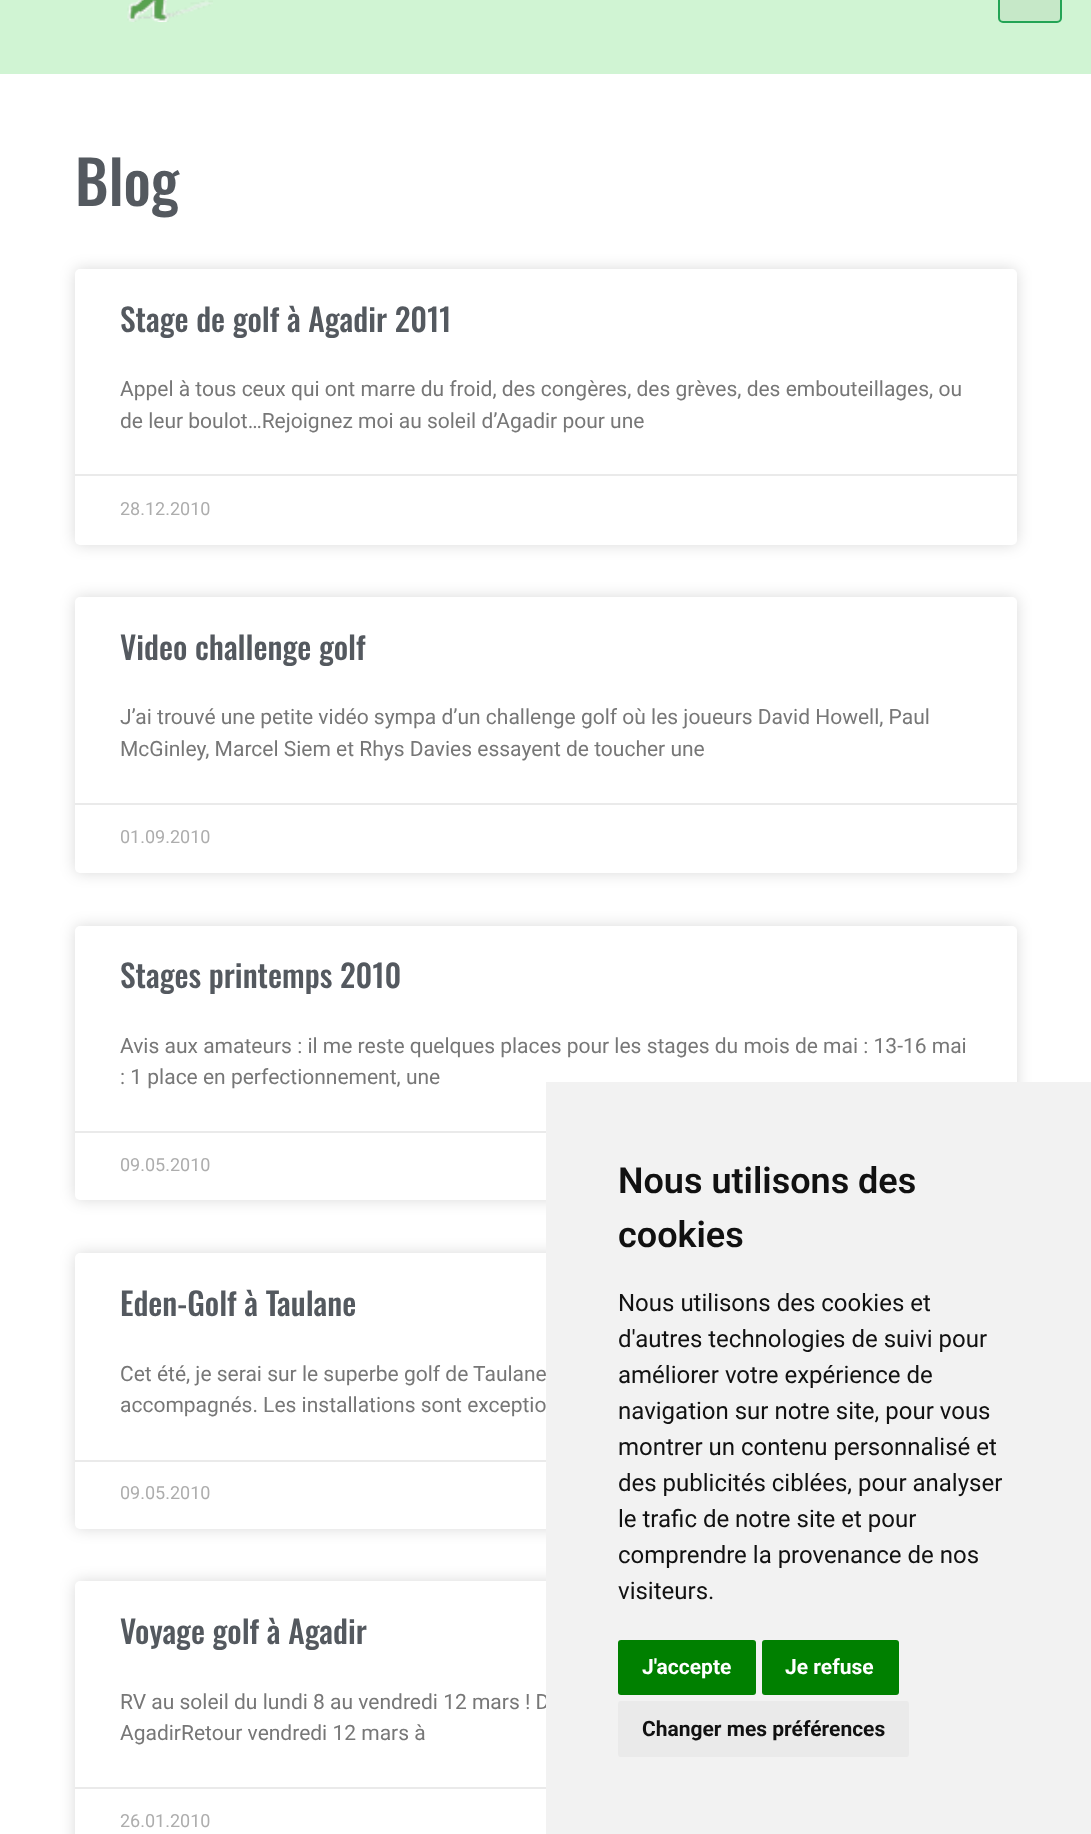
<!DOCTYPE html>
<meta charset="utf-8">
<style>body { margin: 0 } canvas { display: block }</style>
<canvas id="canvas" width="1091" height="1834"></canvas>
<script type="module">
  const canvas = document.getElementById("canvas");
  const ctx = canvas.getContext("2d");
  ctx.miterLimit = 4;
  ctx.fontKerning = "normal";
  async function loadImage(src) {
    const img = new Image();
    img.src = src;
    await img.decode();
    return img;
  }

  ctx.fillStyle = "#ffffff";
  ctx.fillRect(0, 0, 1091, 1834);
  ctx.fillStyle = "#d0f4d3";
  ctx.fillRect(0, 0, 1091, 74);
  ctx.drawImage(await loadImage("img1.png"), 127, 0, 86, 22);
  ctx.fillStyle = "#c6e8c8";
  ctx.beginPath();
  ctx.roundRect(999, -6, 62, 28, 4);
  ctx.fill();
  ctx.strokeStyle = "#23a455";
  ctx.lineWidth = 2;
  ctx.stroke();
  ctx.font = "500 60px Oswald";
  ctx.fillStyle = "#54595f";
  ctx.fillText("Blog", 75, 206);
  ctx.fillStyle = "rgba(0, 0, 0, 0.15)";
  ctx.filter = "blur(7.5px)";
  ctx.beginPath();
  ctx.roundRect(75, 269, 942, 276, 5);
  ctx.fill();
  ctx.filter = "none";
  ctx.fillStyle = "#ffffff";
  ctx.beginPath();
  ctx.roundRect(75, 269, 942, 276, 5);
  ctx.fill();
  ctx.font = "500 31.5px Oswald";
  ctx.fillStyle = "#54595f";
  ctx.fillText("Stage de golf à Agadir 2011", 120, 332);
  ctx.font = "21px Roboto";
  ctx.fillStyle = "#777777";
  ctx.fillText("Appel à tous ceux qui ont marre du froid, des congères, des grèves, des embouteillages, ou", 120, 396);
  ctx.fillText("de leur boulot…Rejoignez moi au soleil d’Agadir pour une", 120, 428);
  ctx.fillStyle = "#eaeaea";
  ctx.fillRect(75, 474, 942, 2);
  ctx.font = "18px Roboto";
  ctx.fillStyle = "#adadad";
  ctx.fillText("28.12.2010", 120, 515);
  ctx.fillStyle = "rgba(0, 0, 0, 0.15)";
  ctx.filter = "blur(7.5px)";
  ctx.beginPath();
  ctx.roundRect(75, 597, 942, 276, 5);
  ctx.fill();
  ctx.filter = "none";
  ctx.fillStyle = "#ffffff";
  ctx.beginPath();
  ctx.roundRect(75, 597, 942, 276, 5);
  ctx.fill();
  ctx.font = "500 31.5px Oswald";
  ctx.fillStyle = "#54595f";
  ctx.fillText("Video challenge golf", 120, 660);
  ctx.font = "21px Roboto";
  ctx.fillStyle = "#777777";
  ctx.fillText("J’ai trouvé une petite vidéo sympa d’un challenge golf où les joueurs David Howell, Paul", 120, 724);
  ctx.fillText("McGinley, Marcel Siem et Rhys Davies essayent de toucher une", 120, 756);
  ctx.fillStyle = "#eaeaea";
  ctx.fillRect(75, 803, 942, 2);
  ctx.font = "18px Roboto";
  ctx.fillStyle = "#adadad";
  ctx.fillText("01.09.2010", 120, 843);
  ctx.fillStyle = "rgba(0, 0, 0, 0.15)";
  ctx.filter = "blur(7.5px)";
  ctx.beginPath();
  ctx.roundRect(75, 926, 942, 274, 5);
  ctx.fill();
  ctx.filter = "none";
  ctx.fillStyle = "#ffffff";
  ctx.beginPath();
  ctx.roundRect(75, 926, 942, 274, 5);
  ctx.fill();
  ctx.font = "500 31.5px Oswald";
  ctx.fillStyle = "#54595f";
  ctx.fillText("Stages printemps 2010", 120, 988);
  ctx.font = "21px Roboto";
  ctx.fillStyle = "#777777";
  ctx.fillText("Avis aux amateurs : il me reste quelques places pour les stages du mois de mai : 13-16 mai", 120, 1053);
  ctx.fillText(": 1 place en perfectionnement, une", 120, 1084);
  ctx.fillStyle = "#eaeaea";
  ctx.fillRect(75, 1131, 471, 2);
  ctx.font = "18px Roboto";
  ctx.fillStyle = "#adadad";
  ctx.fillText("09.05.2010", 120, 1171);
  ctx.fillStyle = "rgba(0, 0, 0, 0.15)";
  ctx.filter = "blur(7.5px)";
  ctx.beginPath();
  ctx.roundRect(75, 1253, 942, 276, 5);
  ctx.fill();
  ctx.filter = "none";
  ctx.fillStyle = "#ffffff";
  ctx.beginPath();
  ctx.roundRect(75, 1253, 942, 276, 5);
  ctx.fill();
  ctx.font = "500 31.5px Oswald";
  ctx.fillStyle = "#54595f";
  ctx.fillText("Eden-Golf à Taulane", 120, 1316);
  ctx.font = "21px Roboto";
  ctx.fillStyle = "#777777";
  ctx.fillText("Cet été, je serai sur le superbe golf de Taulane", 120, 1381);
  ctx.fillText("accompagnés. Les installations sont exceptio", 120, 1412);
  ctx.fillStyle = "#eaeaea";
  ctx.fillRect(75, 1460, 471, 2);
  ctx.font = "18px Roboto";
  ctx.fillStyle = "#adadad";
  ctx.fillText("09.05.2010", 120, 1499);
  ctx.fillStyle = "rgba(0, 0, 0, 0.15)";
  ctx.filter = "blur(7.5px)";
  ctx.beginPath();
  ctx.roundRect(75, 1581, 942, 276, 5);
  ctx.fill();
  ctx.filter = "none";
  ctx.fillStyle = "#ffffff";
  ctx.beginPath();
  ctx.roundRect(75, 1581, 942, 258, 5);
  ctx.fill();
  ctx.font = "500 31.5px Oswald";
  ctx.fillStyle = "#54595f";
  ctx.fillText("Voyage golf à Agadir", 120, 1644);
  ctx.font = "21px Roboto";
  ctx.fillStyle = "#777777";
  ctx.fillText("RV au soleil du lundi 8 au vendredi 12 mars ! D", 120, 1709);
  ctx.fillText("AgadirRetour vendredi 12 mars à", 120, 1740);
  ctx.fillStyle = "#eaeaea";
  ctx.fillRect(75, 1787, 471, 2);
  ctx.font = "18px Roboto";
  ctx.fillStyle = "#adadad";
  ctx.fillText("26.01.2010", 120, 1827);
  ctx.fillStyle = "#f2f2f2";
  ctx.fillRect(546, 1082, 545, 752);
  ctx.font = "600 36px Roboto";
  ctx.fillStyle = "#111111";
  ctx.fillText("Nous utilisons des", 618, 1193);
  ctx.fillText("cookies", 618, 1247);
  ctx.font = "24px Roboto";
  ctx.fillText("Nous utilisons des cookies et", 618, 1311);
  ctx.fillText("d'autres technologies de suivi pour", 618, 1347);
  ctx.fillText("améliorer votre expérience de", 618, 1383);
  ctx.fillText("navigation sur notre site, pour vous", 618, 1419);
  ctx.fillText("montrer un contenu personnalisé et", 618, 1455);
  ctx.fillText("des publicités ciblées, pour analyser", 618, 1491);
  ctx.fillText("le trafic de notre site et pour", 618, 1527);
  ctx.fillText("comprendre la provenance de nos", 618, 1563);
  ctx.fillText("visiteurs.", 618, 1599);
  ctx.fillStyle = "#008000";
  ctx.beginPath();
  ctx.roundRect(618, 1640, 138, 55, 3);
  ctx.fill();
  ctx.font = "bold 21px Roboto";
  ctx.fillStyle = "#ffffff";
  ctx.fillText("J'accepte", 642, 1674);
  ctx.fillStyle = "#008000";
  ctx.beginPath();
  ctx.roundRect(762, 1640, 137, 55, 3);
  ctx.fill();
  ctx.fillStyle = "#ffffff";
  ctx.fillText("Je refuse", 785, 1674);
  ctx.fillStyle = "#eaeaea";
  ctx.beginPath();
  ctx.roundRect(618, 1701, 291, 56, 3);
  ctx.fill();
  ctx.fillStyle = "#111111";
  ctx.fillText("Changer mes préférences", 642, 1736);
</script>
